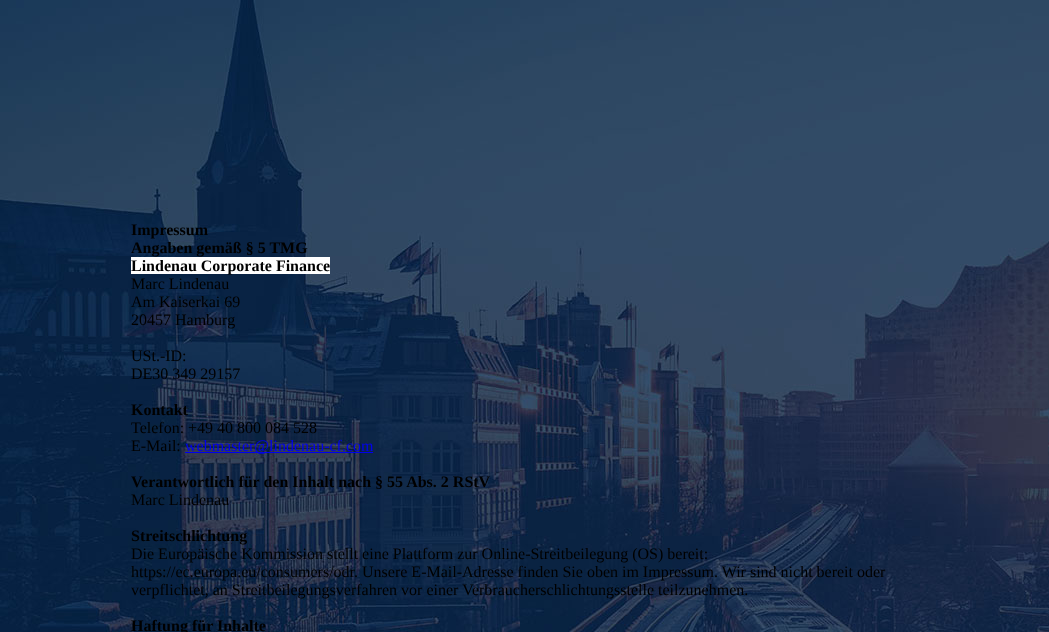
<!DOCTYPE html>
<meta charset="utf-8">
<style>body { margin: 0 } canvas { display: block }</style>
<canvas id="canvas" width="1049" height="632"></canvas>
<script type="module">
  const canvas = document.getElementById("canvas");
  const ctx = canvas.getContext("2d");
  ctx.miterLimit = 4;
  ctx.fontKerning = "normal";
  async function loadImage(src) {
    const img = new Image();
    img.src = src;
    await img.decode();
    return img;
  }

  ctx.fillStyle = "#ffffff";
  ctx.fillRect(0, 0, 1049, 632);
  ctx.drawImage(await loadImage("img1.png"), 0, 0, 1049, 632);
  ctx.font = "bold 16px Liberation Serif";
  ctx.fillStyle = "#000000";
  ctx.fillText("Impressum", 131, 235);
  ctx.fillText("Angaben gemäß § 5 TMG", 131, 253);
  ctx.fillStyle = "#ffffff";
  ctx.fillRect(131, 257, 199, 17);
  ctx.fillStyle = "#000000";
  ctx.fillText("Lindenau Corporate Finance", 131, 271);
  ctx.font = "16px Liberation Serif";
  ctx.fillText("Marc Lindenau", 131, 289);
  ctx.fillText("Am Kaiserkai 69", 131, 307);
  ctx.fillText("20457 Hamburg", 131, 325);
  ctx.fillText("USt.-ID:", 131, 361);
  ctx.fillText("DE30 349 29157", 131, 379);
  ctx.font = "bold 16px Liberation Serif";
  ctx.fillText("Kontakt", 131, 415);
  ctx.font = "16px Liberation Serif";
  ctx.fillText("Telefon: +49 40 800 084 528", 131, 433);
  ctx.fillText("E-Mail:", 131, 451);
  ctx.fillStyle = "#0000ee";
  ctx.fillRect(185, 452, 188, 1);
  ctx.fillText("webmaster@lindenau-cf.com", 185, 451);
  ctx.font = "bold 16px Liberation Serif";
  ctx.fillStyle = "#000000";
  ctx.fillText("Verantwortlich für den Inhalt nach § 55 Abs. 2 RStV", 131, 487);
  ctx.font = "16px Liberation Serif";
  ctx.fillText("Marc Lindenau", 131, 505);
  ctx.font = "bold 16px Liberation Serif";
  ctx.fillText("Streitschlichtung", 131, 541);
  ctx.font = "16px Liberation Serif";
  ctx.fillText("Die Europäische Kommission stellt eine Plattform zur Online-Streitbeilegung (OS) bereit:", 131, 559);
  ctx.fillText("https://ec.europa.eu/consumers/odr. Unsere E-Mail-Adresse finden Sie oben im Impressum. Wir sind nicht bereit oder", 131, 577);
  ctx.fillText("verpflichtet, an Streitbeilegungsverfahren vor einer Verbraucherschlichtungsstelle teilzunehmen.", 131, 595);
  ctx.font = "bold 16px Liberation Serif";
  ctx.fillText("Haftung für Inhalte", 131, 631);
</script>
